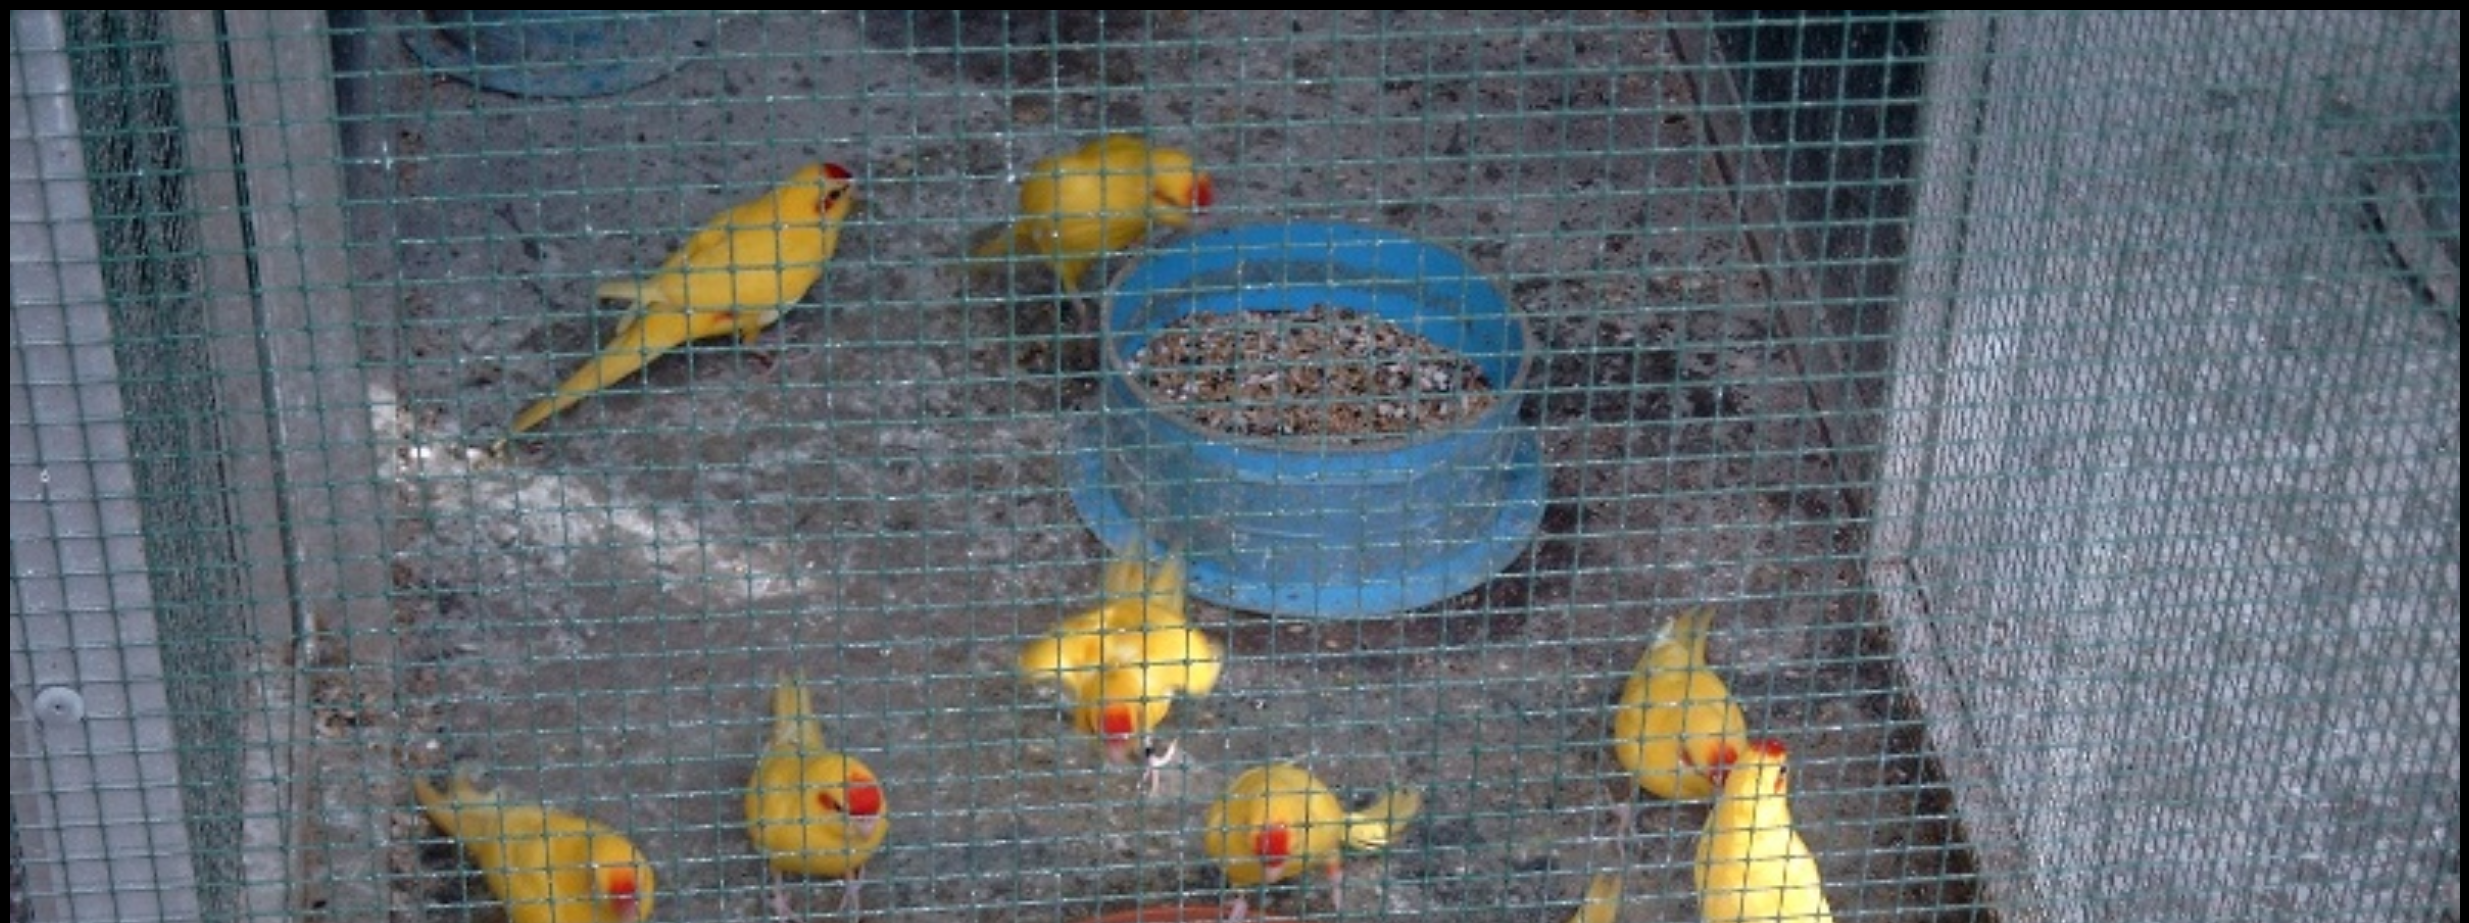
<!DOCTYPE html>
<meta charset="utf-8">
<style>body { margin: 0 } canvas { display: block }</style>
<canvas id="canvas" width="2469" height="923"></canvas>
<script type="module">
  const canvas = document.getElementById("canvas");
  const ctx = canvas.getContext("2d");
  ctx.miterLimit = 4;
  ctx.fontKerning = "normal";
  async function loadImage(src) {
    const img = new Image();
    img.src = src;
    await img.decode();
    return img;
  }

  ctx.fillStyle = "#000000";
  ctx.fillRect(0, 0, 2469, 923);
  ctx.drawImage(await loadImage("img1.png"), 10, 10, 2450, 913);
</script>
